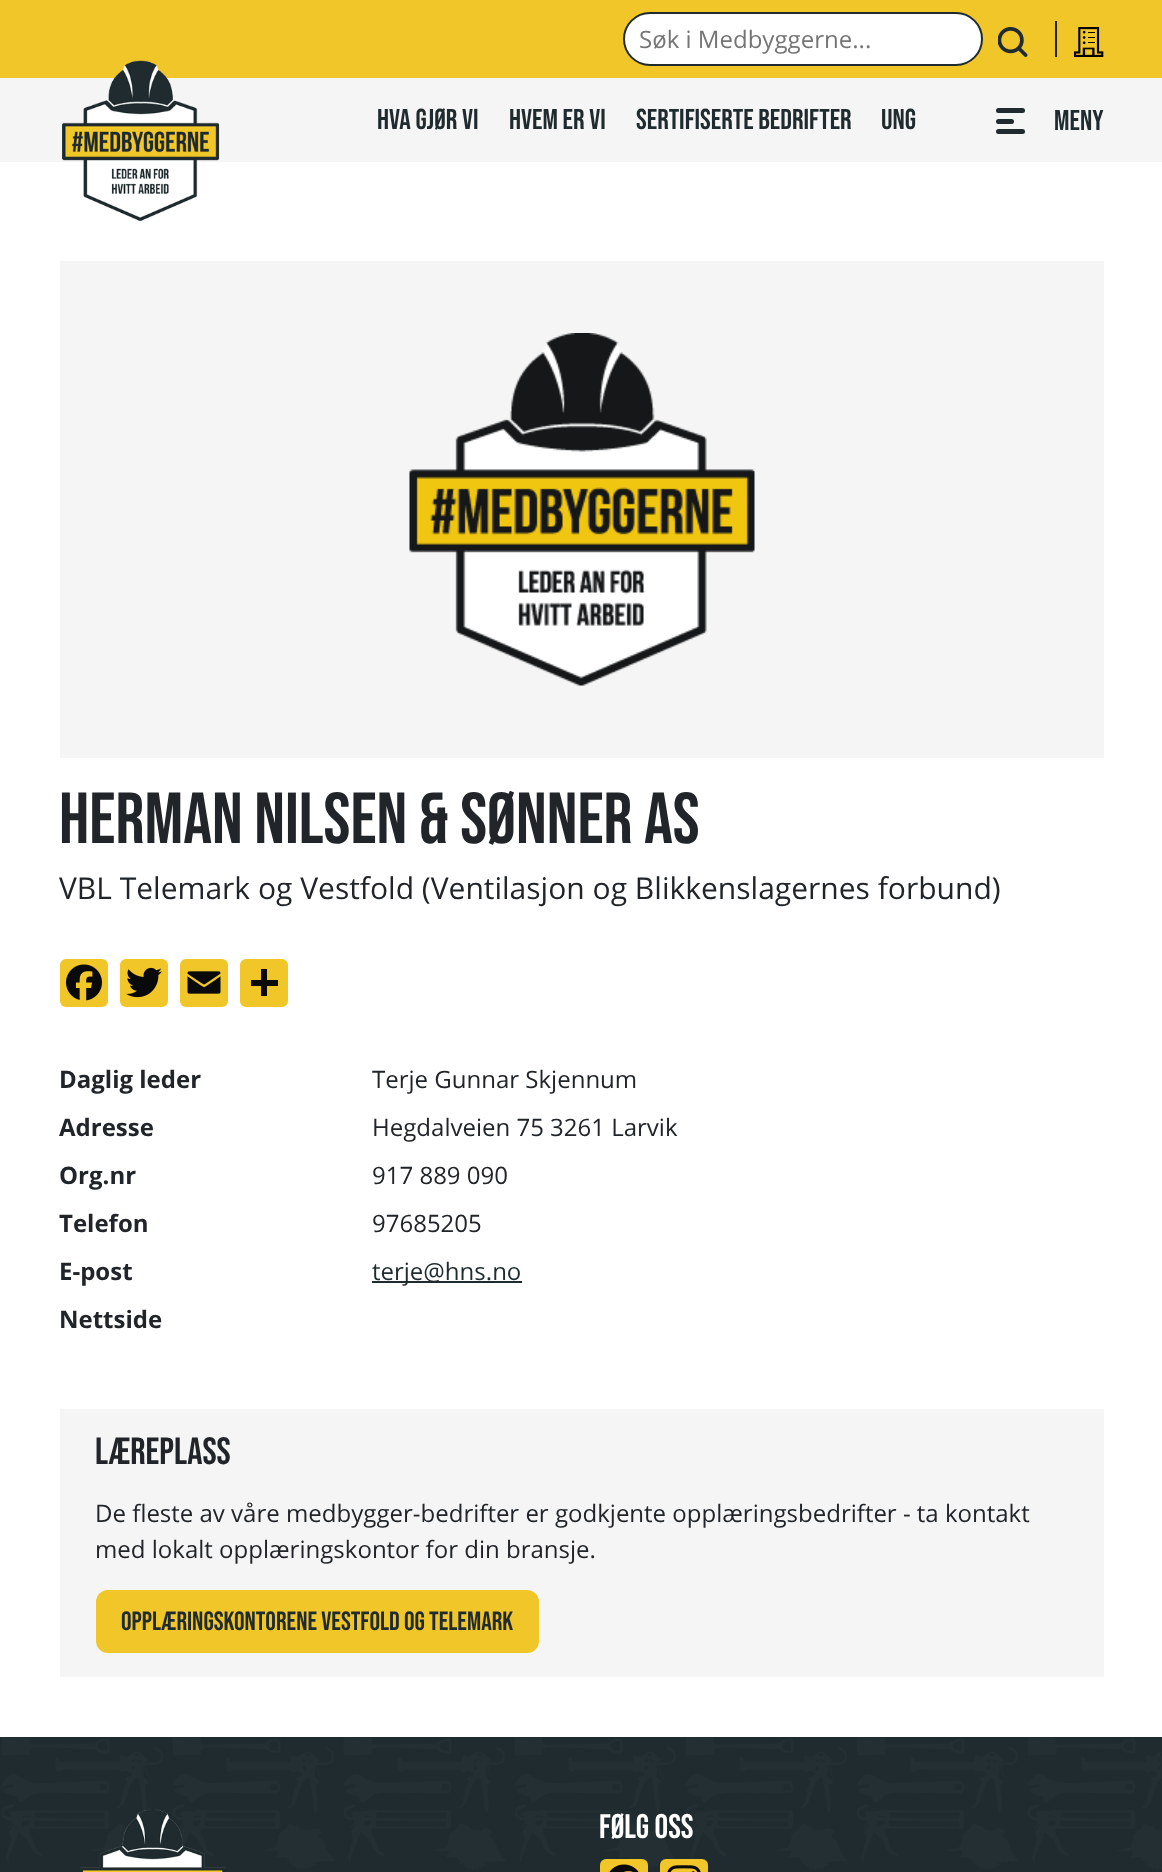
<!DOCTYPE html>
<meta charset="utf-8">
<style>body { margin: 0 } canvas { display: block }</style>
<canvas id="canvas" width="1162" height="1872"></canvas>
<script type="module">
  const canvas = document.getElementById("canvas");
  const ctx = canvas.getContext("2d");
  ctx.miterLimit = 4;
  ctx.fontKerning = "normal";
  async function loadImage(src) {
    const img = new Image();
    img.src = src;
    await img.decode();
    return img;
  }

  ctx.fillStyle = "#ffffff";
  ctx.fillRect(0, 0, 1162, 1872);
  ctx.fillStyle = "#f5f5f5";
  ctx.fillRect(0, 78, 1162, 84);
  ctx.fillStyle = "#f1c628";
  ctx.fillRect(0, 0, 1162, 78);
  ctx.fillStyle = "#ffffff";
  ctx.beginPath();
  ctx.roundRect(624, 13, 358, 52, 26);
  ctx.fill();
  ctx.strokeStyle = "#1f2b2e";
  ctx.lineWidth = 2;
  ctx.stroke();
  ctx.font = "24px Open Sans";
  ctx.fillStyle = "#757575";
  ctx.fillText("Søk i Medbyggerne...", 639, 48);
  ctx.drawImage(await loadImage("img1.png"), 998, 27, 30, 30);
  ctx.fillStyle = "#212529";
  ctx.fillRect(1055, 21, 2, 36);
  ctx.drawImage(await loadImage("img2.png"), 1074, 27, 30, 30);
  ctx.drawImage(await loadImage("img3.png"), 62, 60, 158, 162);
  ctx.font = "28.75px Bebas Neue";
  ctx.fillStyle = "#1f2b2e";
  ctx.fillText("Hva gjør vi", 377, 129);
  ctx.fillText("Hvem er vi", 509, 129);
  ctx.fillText("Sertifiserte bedrifter", 636, 129);
  ctx.fillText("Ung", 881, 129);
  ctx.beginPath();
  ctx.roundRect(996, 108, 29, 5, 2.5);
  ctx.fill();
  ctx.beginPath();
  ctx.roundRect(996, 119, 18, 5, 2.5);
  ctx.fill();
  ctx.beginPath();
  ctx.roundRect(996, 129, 29, 5, 2.5);
  ctx.fill();
  ctx.fillText("Meny", 1054, 130);
  ctx.fillStyle = "#f5f5f5";
  ctx.fillRect(60, 261, 1044, 497);
  ctx.drawImage(await loadImage("img4.png"), 409, 333, 346, 353);
  ctx.font = "72px Bebas Neue";
  ctx.fillStyle = "#212529";
  ctx.fillText("Herman Nilsen & sønner AS", 59, 843);
  ctx.font = "30px Open Sans";
  ctx.fillText("VBL Telemark og Vestfold (Ventilasjon og Blikkenslagernes forbund)", 59, 899);
  ctx.fillStyle = "#f1c628";
  ctx.beginPath();
  ctx.roundRect(60, 959, 48, 48, 6);
  ctx.fill();
  ctx.drawImage(await loadImage("img5.png"), 66, 964, 36, 37);
  ctx.beginPath();
  ctx.roundRect(120, 959, 48, 48, 6);
  ctx.fill();
  ctx.drawImage(await loadImage("img6.png"), 126, 967, 36, 31);
  ctx.beginPath();
  ctx.roundRect(180, 959, 48, 48, 6);
  ctx.fill();
  ctx.drawImage(await loadImage("img7.png"), 187, 971, 34, 23);
  ctx.beginPath();
  ctx.roundRect(240, 959, 48, 48, 6);
  ctx.fill();
  ctx.fillStyle = "#0a0a0a";
  ctx.fillRect(261, 969, 6, 27);
  ctx.fillRect(251, 980, 27, 6);
  ctx.font = "bold 24px Open Sans";
  ctx.fillStyle = "#212529";
  ctx.fillText("Daglig leder", 59, 1088);
  ctx.font = "24px Open Sans";
  ctx.fillText("Terje Gunnar Skjennum", 372, 1088);
  ctx.font = "bold 24px Open Sans";
  ctx.fillText("Adresse", 59, 1136);
  ctx.font = "24px Open Sans";
  ctx.fillText("Hegdalveien 75 3261 Larvik", 372, 1136);
  ctx.font = "bold 24px Open Sans";
  ctx.fillText("Org.nr", 59, 1184);
  ctx.font = "24px Open Sans";
  ctx.fillText("917 889 090", 372, 1184);
  ctx.font = "bold 24px Open Sans";
  ctx.fillText("Telefon", 59, 1232);
  ctx.font = "24px Open Sans";
  ctx.fillText("97685205", 372, 1232);
  ctx.font = "bold 24px Open Sans";
  ctx.fillText("E-post", 59, 1280);
  ctx.fillStyle = "#1f2b2e";
  ctx.fillRect(372, 1281, 150, 2);
  ctx.font = "24px Open Sans";
  ctx.fillText("terje@hns.no", 372, 1280);
  ctx.font = "bold 24px Open Sans";
  ctx.fillStyle = "#212529";
  ctx.fillText("Nettside", 59, 1328);
  ctx.fillStyle = "#f5f5f5";
  ctx.fillRect(60, 1409, 1044, 268);
  ctx.font = "38px Bebas Neue";
  ctx.fillStyle = "#212529";
  ctx.fillText("Læreplass", 95, 1464);
  ctx.font = "24px Open Sans";
  ctx.fillText("De fleste av våre medbygger-bedrifter er godkjente opplæringsbedrifter - ta kontakt", 95, 1522);
  ctx.fillText("med lokalt opplæringskontor for din bransje.", 95, 1558);
  ctx.fillStyle = "#f1c628";
  ctx.beginPath();
  ctx.roundRect(97, 1591, 441, 61, 11);
  ctx.fill();
  ctx.strokeStyle = "#f1c628";
  ctx.stroke();
  ctx.font = "26.4px Bebas Neue";
  ctx.fillStyle = "#1f2b2e";
  ctx.fillText("Opplæringskontorene Vestfold og Telemark", 121, 1630);
  ctx.drawImage(await loadImage("img8.png"), 0, 1737, 1162, 135);
  ctx.drawImage(await loadImage("img9.png"), 80, 1809, 146, 63);
  ctx.font = "34px Bebas Neue";
  ctx.fillStyle = "#ffffff";
  ctx.fillText("Følg oss", 599, 1838);
  ctx.fillStyle = "#f1c628";
  ctx.beginPath();
  ctx.roundRect(600, 1859, 48, 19, 6);
  ctx.fill();
  ctx.drawImage(await loadImage("img10.png"), 609, 1864, 30, 8);
  ctx.beginPath();
  ctx.roundRect(660, 1859, 48, 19, 6);
  ctx.fill();
  ctx.drawImage(await loadImage("img11.png"), 667, 1865, 34, 7);
</script>
